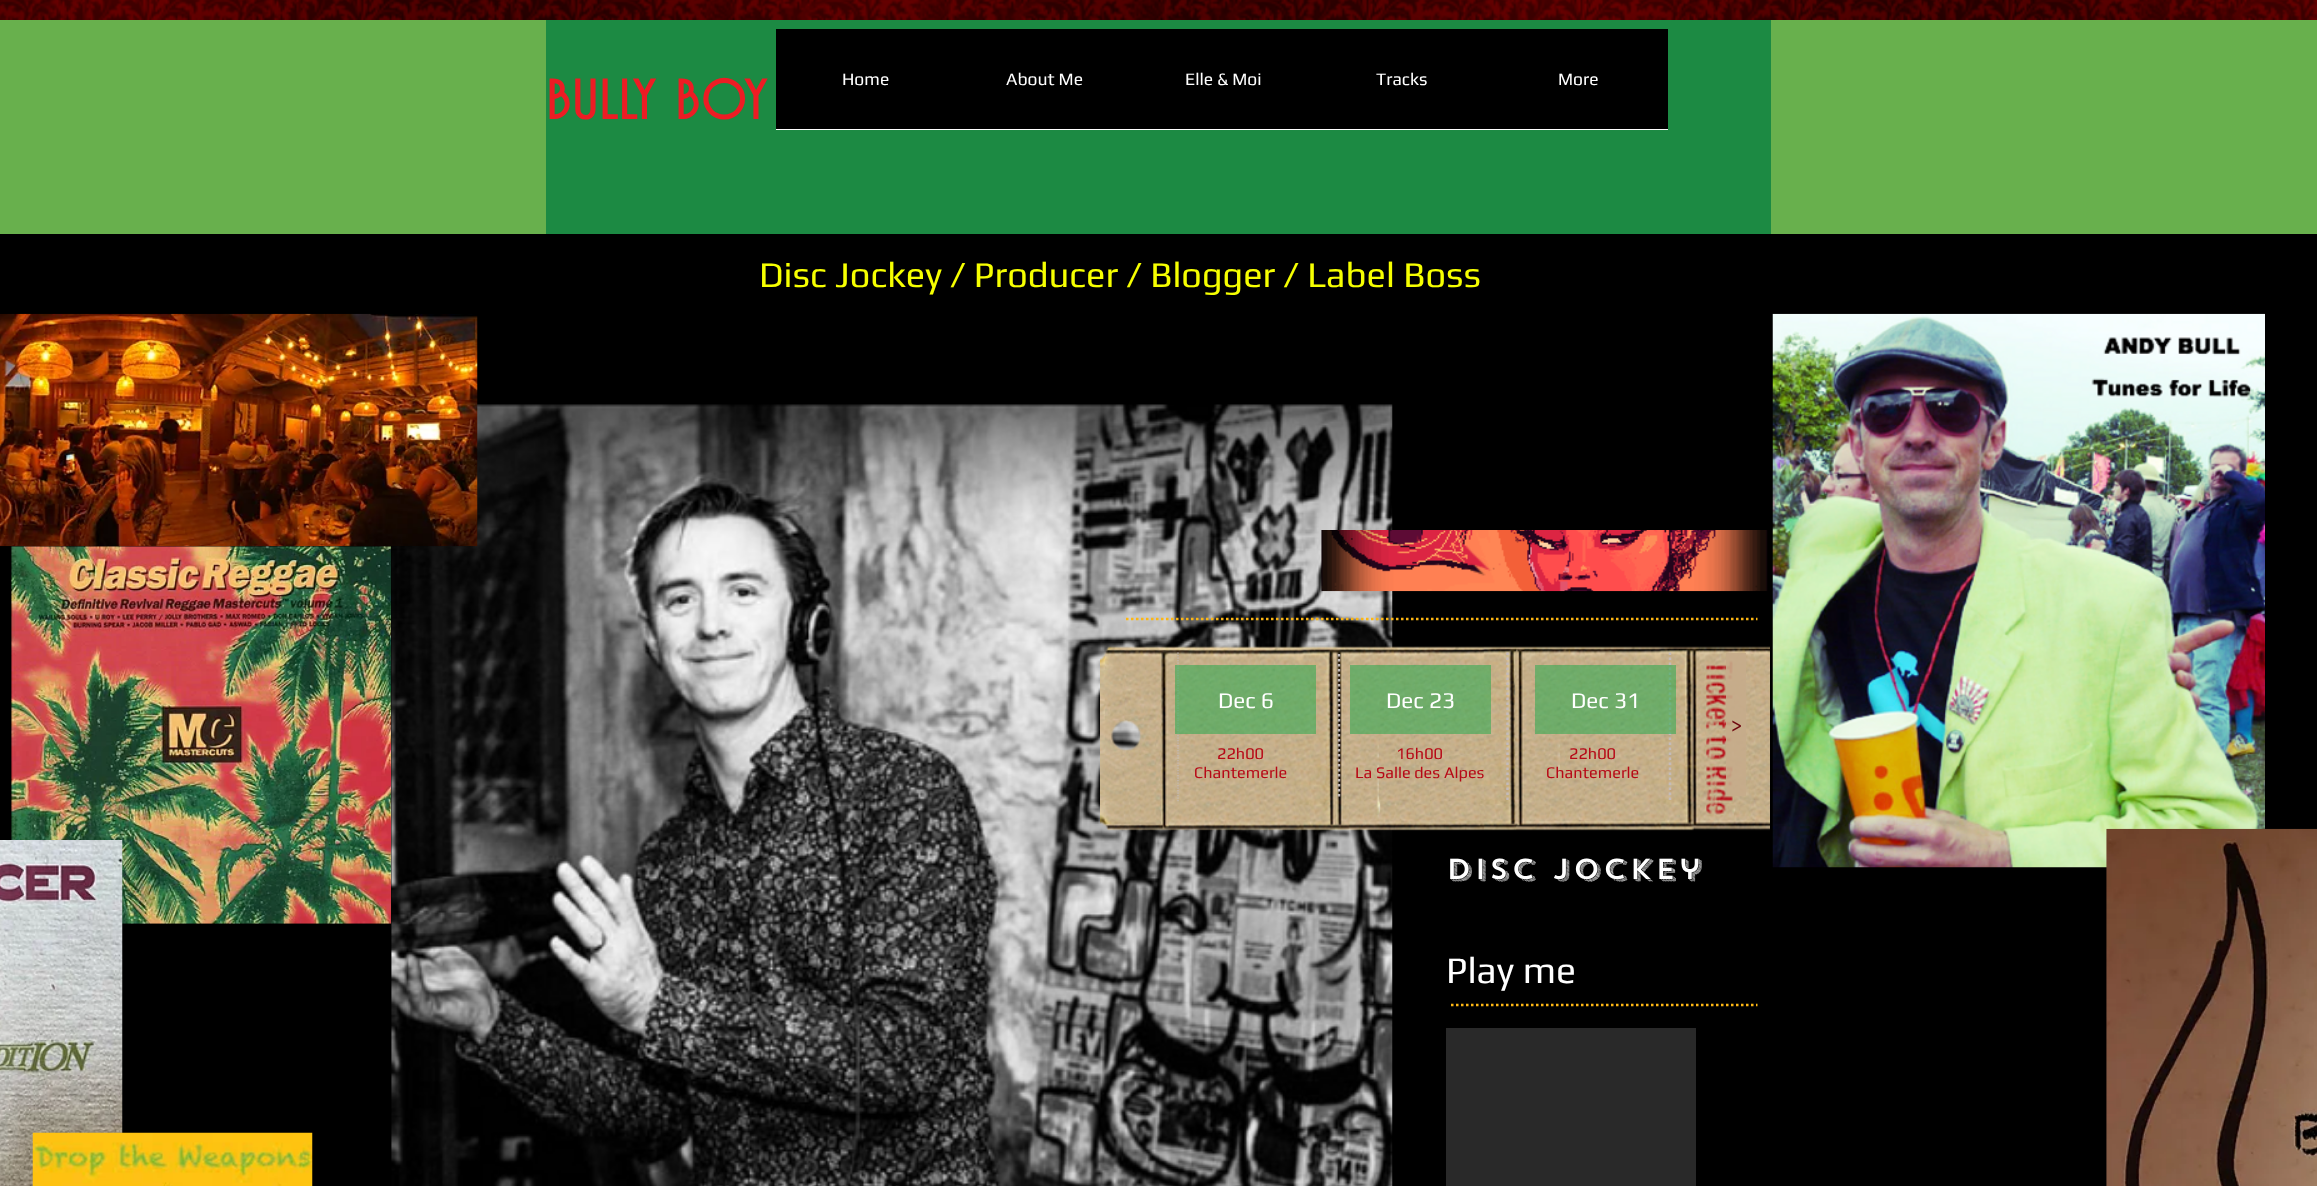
<!DOCTYPE html>
<meta charset="utf-8">
<style>body { margin: 0 } canvas { display: block }</style>
<canvas id="canvas" width="2317" height="1186"></canvas>
<script type="module">
  const canvas = document.getElementById("canvas");
  const ctx = canvas.getContext("2d");
  ctx.miterLimit = 4;
  ctx.fontKerning = "normal";
  async function loadImage(src) {
    const img = new Image();
    img.src = src;
    await img.decode();
    return img;
  }

  ctx.fillStyle = "#000000";
  ctx.fillRect(0, 0, 2317, 1186);
  ctx.fillStyle = "#68b04d";
  ctx.fillRect(0, 20, 2317, 214);
  ctx.fillStyle = "#1c8a43";
  ctx.fillRect(546, 20, 1225, 214);
  ctx.drawImage(await loadImage("img1.png"), 0, 0, 2317, 20);
  ctx.font = "76px 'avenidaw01'";
  ctx.fillStyle = "#ed1c24";
  ctx.fillText("bully boy", 546, 119);
  ctx.fillStyle = "#000000";
  ctx.fillRect(776, 29, 892, 100);
  ctx.fillStyle = "#ffffff";
  ctx.fillRect(776, 129, 892, 1);
  ctx.font = "17.5px Play";
  ctx.fillText("Home", 842, 85);
  ctx.fillText("About Me", 1006, 85);
  ctx.fillText("Elle & Moi", 1185, 85);
  ctx.fillText("Tracks", 1376, 85);
  ctx.fillText("More", 1558, 85);
  ctx.drawImage(await loadImage("img3.png"), 11, 546, 381, 378);
  ctx.drawImage(await loadImage("img4.png"), 391, 404, 1002, 782);
  ctx.drawImage(await loadImage("img2.png"), 0, 313, 478, 234);
  ctx.font = "36.25px Play";
  ctx.fillStyle = "#f6ff00";
  ctx.fillText("Disc Jockey / Producer / Blogger / Label Boss", 759, 287);
  ctx.drawImage(await loadImage("img5.png"), 1321, 530, 447, 62);
  ctx.drawImage(await loadImage("img6.png"), 1772, 313, 493, 555);
  ctx.beginPath();
  ctx.moveTo(1126, 619);
  ctx.lineTo(1757.5, 619);
  ctx.strokeStyle = "#fcb614";
  ctx.lineWidth = 2.5;
  ctx.setLineDash([2.5, 2.5]);
  ctx.stroke();
  ctx.drawImage(await loadImage("img7.png"), 1100, 646, 670, 185);
  ctx.beginPath();
  ctx.moveTo(1178, 652.5);
  ctx.lineTo(1178, 802.5);
  ctx.strokeStyle = "#c3bbbb";
  ctx.lineWidth = 1.2;
  ctx.setLineDash([1.25, 1.25]);
  ctx.stroke();
  ctx.fillStyle = "rgba(26, 169, 74, 0.5)";
  ctx.fillRect(1175, 665, 141, 69);
  ctx.font = "22.5px Play";
  ctx.fillStyle = "#ffffff";
  ctx.fillText("Dec 6", 1218, 708);
  ctx.beginPath();
  ctx.moveTo(1339, 654);
  ctx.lineTo(1339, 799);
  ctx.lineWidth = 2.5;
  ctx.setLineDash([2.5, 2.5]);
  ctx.stroke();
  ctx.fillStyle = "rgba(26, 169, 74, 0.5)";
  ctx.fillRect(1350, 665, 141, 69);
  ctx.fillStyle = "#ffffff";
  ctx.fillText("Dec 23", 1386, 708);
  ctx.beginPath();
  ctx.moveTo(1507.5, 652.5);
  ctx.lineTo(1507.5, 802.5);
  ctx.stroke();
  ctx.beginPath();
  ctx.moveTo(1670, 652.5);
  ctx.lineTo(1670, 802.5);
  ctx.stroke();
  ctx.fillStyle = "rgba(26, 169, 74, 0.5)";
  ctx.fillRect(1535, 665, 141, 69);
  ctx.fillStyle = "#ffffff";
  ctx.fillText("Dec 31", 1571, 708);
  ctx.font = "16.25px Play";
  ctx.fillStyle = "#b70816";
  ctx.fillText("22h00", 1217, 759);
  ctx.fillText("Chantemerle", 1194, 778);
  ctx.fillText("16h00", 1396, 759);
  ctx.fillText("La Salle des Alpes", 1355, 778);
  ctx.fillText("22h00", 1569, 759);
  ctx.fillText("Chantemerle", 1546, 778);
  ctx.fillStyle = "rgba(198, 172, 139, 0.91)";
  ctx.fillRect(1726, 653, 20, 143);
  ctx.font = "22.5px Play";
  ctx.fillStyle = "#6e050e";
  ctx.fillText(">", 1731, 733);
  ctx.drawImage(await loadImage("img8.png"), 0, 840, 123, 346);
  ctx.letterSpacing = "2.9px";
  ctx.font = "500 28.75px 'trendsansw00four'";
  ctx.fillStyle = "#ffffff";
  ctx.fillText("Disc Jockey", 1446, 879);
  ctx.drawImage(await loadImage("img9.png"), 2106, 828, 211, 358);
  ctx.letterSpacing = "0px";
  ctx.font = "37.5px Play";
  ctx.fillText("Play me", 1446, 983);
  ctx.beginPath();
  ctx.moveTo(1451, 1005);
  ctx.lineTo(1757.5, 1005);
  ctx.strokeStyle = "#fcb614";
  ctx.stroke();
  ctx.drawImage(await loadImage("img10.png"), 32, 1132, 281, 54);
  ctx.fillStyle = "#292929";
  ctx.fillRect(1446, 1028, 250, 158);
</script>
